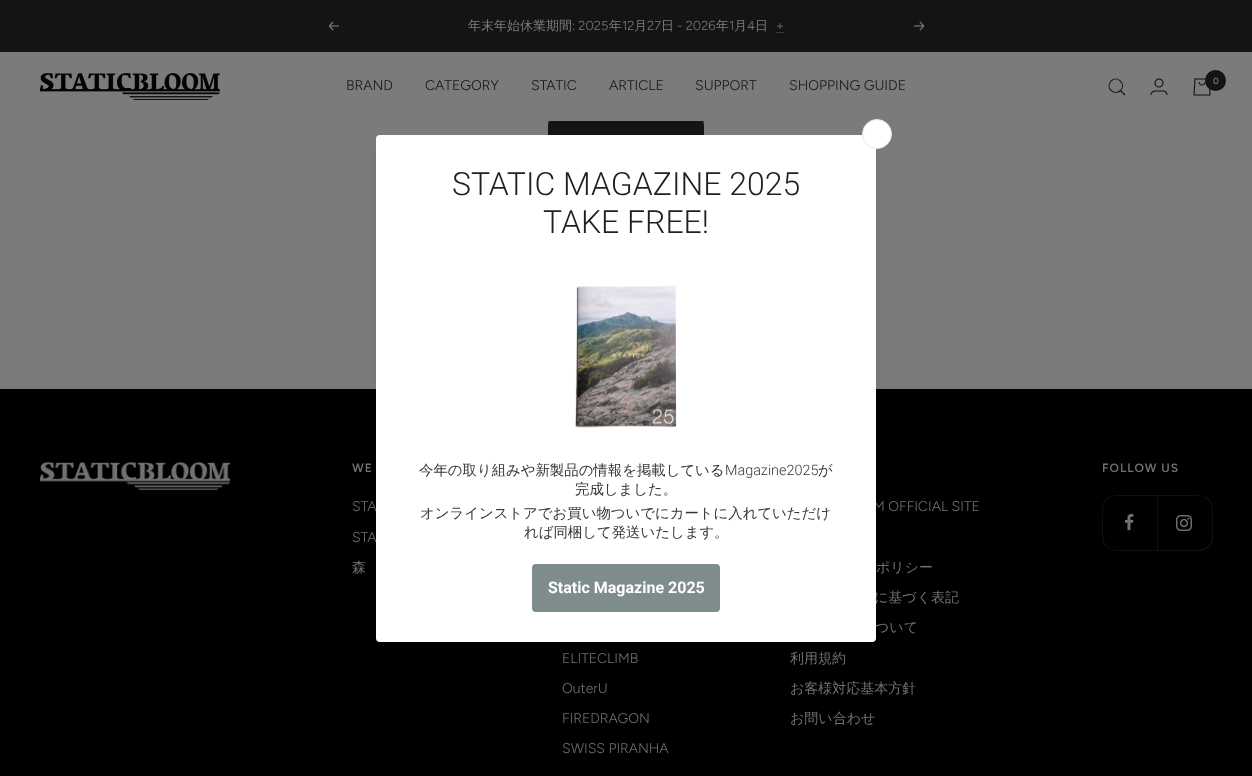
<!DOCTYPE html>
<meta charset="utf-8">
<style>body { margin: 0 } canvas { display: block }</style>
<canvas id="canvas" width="1252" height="776"></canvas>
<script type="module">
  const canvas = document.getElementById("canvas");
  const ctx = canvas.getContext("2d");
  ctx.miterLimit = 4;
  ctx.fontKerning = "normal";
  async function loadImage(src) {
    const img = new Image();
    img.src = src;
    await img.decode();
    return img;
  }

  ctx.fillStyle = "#7b7b7b";
  ctx.fillRect(0, 0, 1252, 776);
  ctx.fillStyle = "#141414";
  ctx.fillRect(0, 0, 1252, 52);
  ctx.drawImage(await loadImage("img1.png"), 328, 21, 11, 10);
  ctx.font = "500 13px WenQuanYi Zen Hei";
  ctx.fillStyle = "#7b7b7b";
  ctx.fillText("年末年始休業期間", 468, 30);
  ctx.font = "300 13px Figtree";
  ctx.fillText(": 2025", 572, 30);
  ctx.font = "500 13px WenQuanYi Zen Hei";
  ctx.fillText("年", 609, 30);
  ctx.font = "300 13px Figtree";
  ctx.fillText("12", 622, 30);
  ctx.font = "500 13px WenQuanYi Zen Hei";
  ctx.fillText("月", 634, 30);
  ctx.font = "300 13px Figtree";
  ctx.fillText("27", 647, 30);
  ctx.font = "500 13px WenQuanYi Zen Hei";
  ctx.fillText("日", 661, 30);
  ctx.font = "300 13px Figtree";
  ctx.fillText("- 2026", 677, 30);
  ctx.font = "500 13px WenQuanYi Zen Hei";
  ctx.fillText("年", 716, 30);
  ctx.font = "300 13px Figtree";
  ctx.fillText("1", 729, 30);
  ctx.font = "500 13px WenQuanYi Zen Hei";
  ctx.fillText("月", 734, 30);
  ctx.font = "300 13px Figtree";
  ctx.fillText("4", 747, 30);
  ctx.font = "500 13px WenQuanYi Zen Hei";
  ctx.fillText("日", 755, 30);
  ctx.font = "300 13px Figtree";
  ctx.fillText("+", 776, 30);
  ctx.fillStyle = "#3a3a3a";
  ctx.fillRect(776, 32, 8, 1);
  ctx.drawImage(await loadImage("img2.png"), 914, 21, 11, 10);
  ctx.fillStyle = "#141414";
  ctx.beginPath();
  ctx.roundRect(548, 112, 156, 52, 14);
  ctx.fill();
  ctx.fillStyle = "#7b7b7b";
  ctx.fillRect(549, 112, 154, 9);
  ctx.drawImage(await loadImage("img3.png"), 40, 73, 180, 27);
  ctx.font = "300 14px Figtree";
  ctx.fillStyle = "#141414";
  ctx.fillText("BRAND", 346, 90);
  ctx.fillText("CATEGORY", 425, 90);
  ctx.fillText("STATIC", 531, 90);
  ctx.fillText("ARTICLE", 609, 90);
  ctx.fillText("SUPPORT", 695, 90);
  ctx.fillText("SHOPPING GUIDE", 789, 90);
  ctx.beginPath();
  ctx.moveTo(1120.5, 90.5);
  ctx.bezierCurveTo(1126.5, 84, 1117.5, 75, 1111, 81);
  ctx.bezierCurveTo(1105, 87.5, 1114, 96.5, 1120.5, 90.5);
  ctx.closePath();
  ctx.moveTo(1120.5, 90.5);
  ctx.lineTo(1125, 95);
  ctx.strokeStyle = "#141414";
  ctx.lineWidth = 1.1;
  ctx.stroke();
  ctx.drawImage(await loadImage("img4.png"), 1150, 78, 18, 17);
  ctx.drawImage(await loadImage("img5.png"), 1193, 78, 18, 18);
  ctx.beginPath();
  ctx.arc(1215.5, 80.5, 10.5, 0, Math.PI * 2);
  ctx.fill();
  ctx.font = "600 9px Figtree";
  ctx.fillStyle = "#7b7b7b";
  ctx.fillText("0", 1213, 84);
  ctx.fillStyle = "#000000";
  ctx.fillRect(0, 389, 1252, 387);
  ctx.fillStyle = "rgba(0, 0, 0, 0.1)";
  ctx.filter = "blur(7.5px)";
  ctx.beginPath();
  ctx.roundRect(379, 148, 494, 501, 1);
  ctx.fill();
  ctx.filter = "none";
  ctx.font = "300 14px Figtree";
  ctx.fillStyle = "#727171";
  ctx.fillText("STA", 352, 511);
  ctx.fillText("STA", 352, 542);
  ctx.fillText("M OFFICIAL SITE", 873, 511);
  ctx.font = "500 14px WenQuanYi Zen Hei";
  ctx.fillText("に基づく表記", 874, 602);
  ctx.fillText("ついて", 875, 632);
  ctx.fillStyle = "#ffffff";
  ctx.beginPath();
  ctx.roundRect(376, 135, 500, 507, 4);
  ctx.fill();
  ctx.beginPath();
  ctx.arc(877, 134, 14.5, 0, Math.PI * 2);
  ctx.fill();
  ctx.strokeStyle = "#e2e8f0";
  ctx.lineWidth = 1;
  ctx.stroke();
  ctx.font = "300 32px Roboto";
  ctx.fillStyle = "#1f1f1f";
  ctx.fillText("STATIC MAGAZINE 2025", 452, 195);
  ctx.fillText("TAKE FREE!", 543, 233);
  ctx.drawImage(await loadImage("img6.png"), 575, 285, 102, 143);
  ctx.font = "500 14.4px WenQuanYi Zen Hei";
  ctx.fillStyle = "#363636";
  ctx.fillText("今年の取り組みや新製品の情報を掲載している", 419, 475);
  ctx.font = "300 14.4px Roboto";
  ctx.fillText("Magazine2025", 725, 475);
  ctx.font = "500 14.4px WenQuanYi Zen Hei";
  ctx.fillText("が", 818, 475);
  ctx.fillText("完成しました。", 575, 494);
  ctx.fillText("オンラインストアでお買い物ついでにカートに入れていただけ", 420, 518);
  ctx.fillText("れば同梱して発送いたします。", 524, 537);
  ctx.fillStyle = "#7f8c8d";
  ctx.beginPath();
  ctx.roundRect(532, 564, 188, 48, 4);
  ctx.fill();
  ctx.font = "bold 16px Roboto";
  ctx.fillStyle = "#ffffff";
  ctx.fillText("Static Magazine 2025", 548, 593);
  ctx.drawImage(await loadImage("img7.png"), 40, 462, 190, 29);
  ctx.letterSpacing = "1px";
  ctx.font = "600 12px Figtree";
  ctx.fillStyle = "#727171";
  ctx.fillText("WE", 352, 472);
  ctx.letterSpacing = "0px";
  ctx.wordSpacing = "-1px";
  ctx.font = "500 14px WenQuanYi Zen Hei";
  ctx.fillText("森", 352, 572);
  ctx.letterSpacing = "1px";
  ctx.wordSpacing = "0px";
  ctx.font = "600 12px Figtree";
  ctx.fillText("FOLLOW US", 1102, 472);
  ctx.fillStyle = "#111111";
  ctx.beginPath();
  ctx.moveTo(1102, 536);
  ctx.bezierCurveTo(1102, 553, 1117, 551, 1130, 551);
  ctx.lineTo(1157, 551);
  ctx.lineTo(1157, 550);
  ctx.lineTo(1116, 550);
  ctx.bezierCurveTo(1108, 550, 1102, 544, 1102, 536);
  ctx.closePath();
  ctx.fill();
  ctx.fillRect(1157, 495, 1, 55);
  ctx.beginPath();
  ctx.moveTo(1116, 496);
  ctx.lineTo(1157, 496);
  ctx.lineTo(1157, 495);
  ctx.lineTo(1130, 495);
  ctx.bezierCurveTo(1117, 495, 1102, 493, 1102, 510);
  ctx.bezierCurveTo(1102, 502, 1108, 496, 1116, 496);
  ctx.closePath();
  ctx.fill();
  ctx.beginPath();
  ctx.moveTo(1116, 495);
  ctx.bezierCurveTo(1108, 495, 1102, 501, 1102, 509);
  ctx.lineTo(1102, 536);
  ctx.bezierCurveTo(1102, 544, 1108, 550, 1116, 550);
  ctx.lineTo(1117, 550);
  ctx.bezierCurveTo(1101, 550, 1103, 534, 1103, 522);
  ctx.bezierCurveTo(1103, 511, 1101, 495, 1117, 495);
  ctx.closePath();
  ctx.fill();
  ctx.drawImage(await loadImage("img8.png"), 1125, 514, 9, 17);
  ctx.beginPath();
  ctx.moveTo(1158, 550);
  ctx.lineTo(1158, 551);
  ctx.lineTo(1199, 551);
  ctx.bezierCurveTo(1207, 551, 1213, 545, 1213, 537);
  ctx.lineTo(1213, 510);
  ctx.bezierCurveTo(1213, 506, 1211, 502, 1208, 500);
  ctx.bezierCurveTo(1211, 502, 1212, 505, 1212, 509);
  ctx.lineTo(1212, 536);
  ctx.bezierCurveTo(1212, 544, 1206, 550, 1198, 550);
  ctx.closePath();
  ctx.fill();
  ctx.beginPath();
  ctx.moveTo(1157, 550);
  ctx.lineTo(1157, 551);
  ctx.lineTo(1184, 551);
  ctx.bezierCurveTo(1197, 551, 1212, 553, 1212, 536);
  ctx.bezierCurveTo(1212, 544, 1206, 550, 1198, 550);
  ctx.closePath();
  ctx.fill();
  ctx.beginPath();
  ctx.moveTo(1198, 550);
  ctx.bezierCurveTo(1215, 550, 1213, 535, 1213, 522);
  ctx.bezierCurveTo(1213, 510, 1215, 495, 1198, 495);
  ctx.bezierCurveTo(1206, 495, 1212, 501, 1212, 509);
  ctx.lineTo(1212, 536);
  ctx.bezierCurveTo(1212, 544, 1206, 550, 1198, 550);
  ctx.closePath();
  ctx.fill();
  ctx.beginPath();
  ctx.moveTo(1157, 496);
  ctx.lineTo(1198, 496);
  ctx.bezierCurveTo(1206, 496, 1212, 502, 1212, 510);
  ctx.bezierCurveTo(1212, 493, 1197, 495, 1184, 495);
  ctx.lineTo(1157, 495);
  ctx.closePath();
  ctx.fill();
  ctx.drawImage(await loadImage("img9.png"), 1176, 515, 16, 16);
  ctx.letterSpacing = "0px";
  ctx.font = "300 14px Figtree";
  ctx.fillStyle = "#727171";
  ctx.fillText("ELITECLIMB", 562, 663);
  ctx.fillText("OuterU", 562, 693);
  ctx.fillText("FIREDRAGON", 562, 723);
  ctx.fillText("SWISS PIRANHA", 562, 753);
  ctx.font = "500 14px WenQuanYi Zen Hei";
  ctx.fillText("ポリシー", 876, 572);
  ctx.fillText("利用規約", 790, 663);
  ctx.fillText("お客様対応基本方針", 790, 693);
  ctx.fillText("お問い合わせ", 790, 723);
</script>
